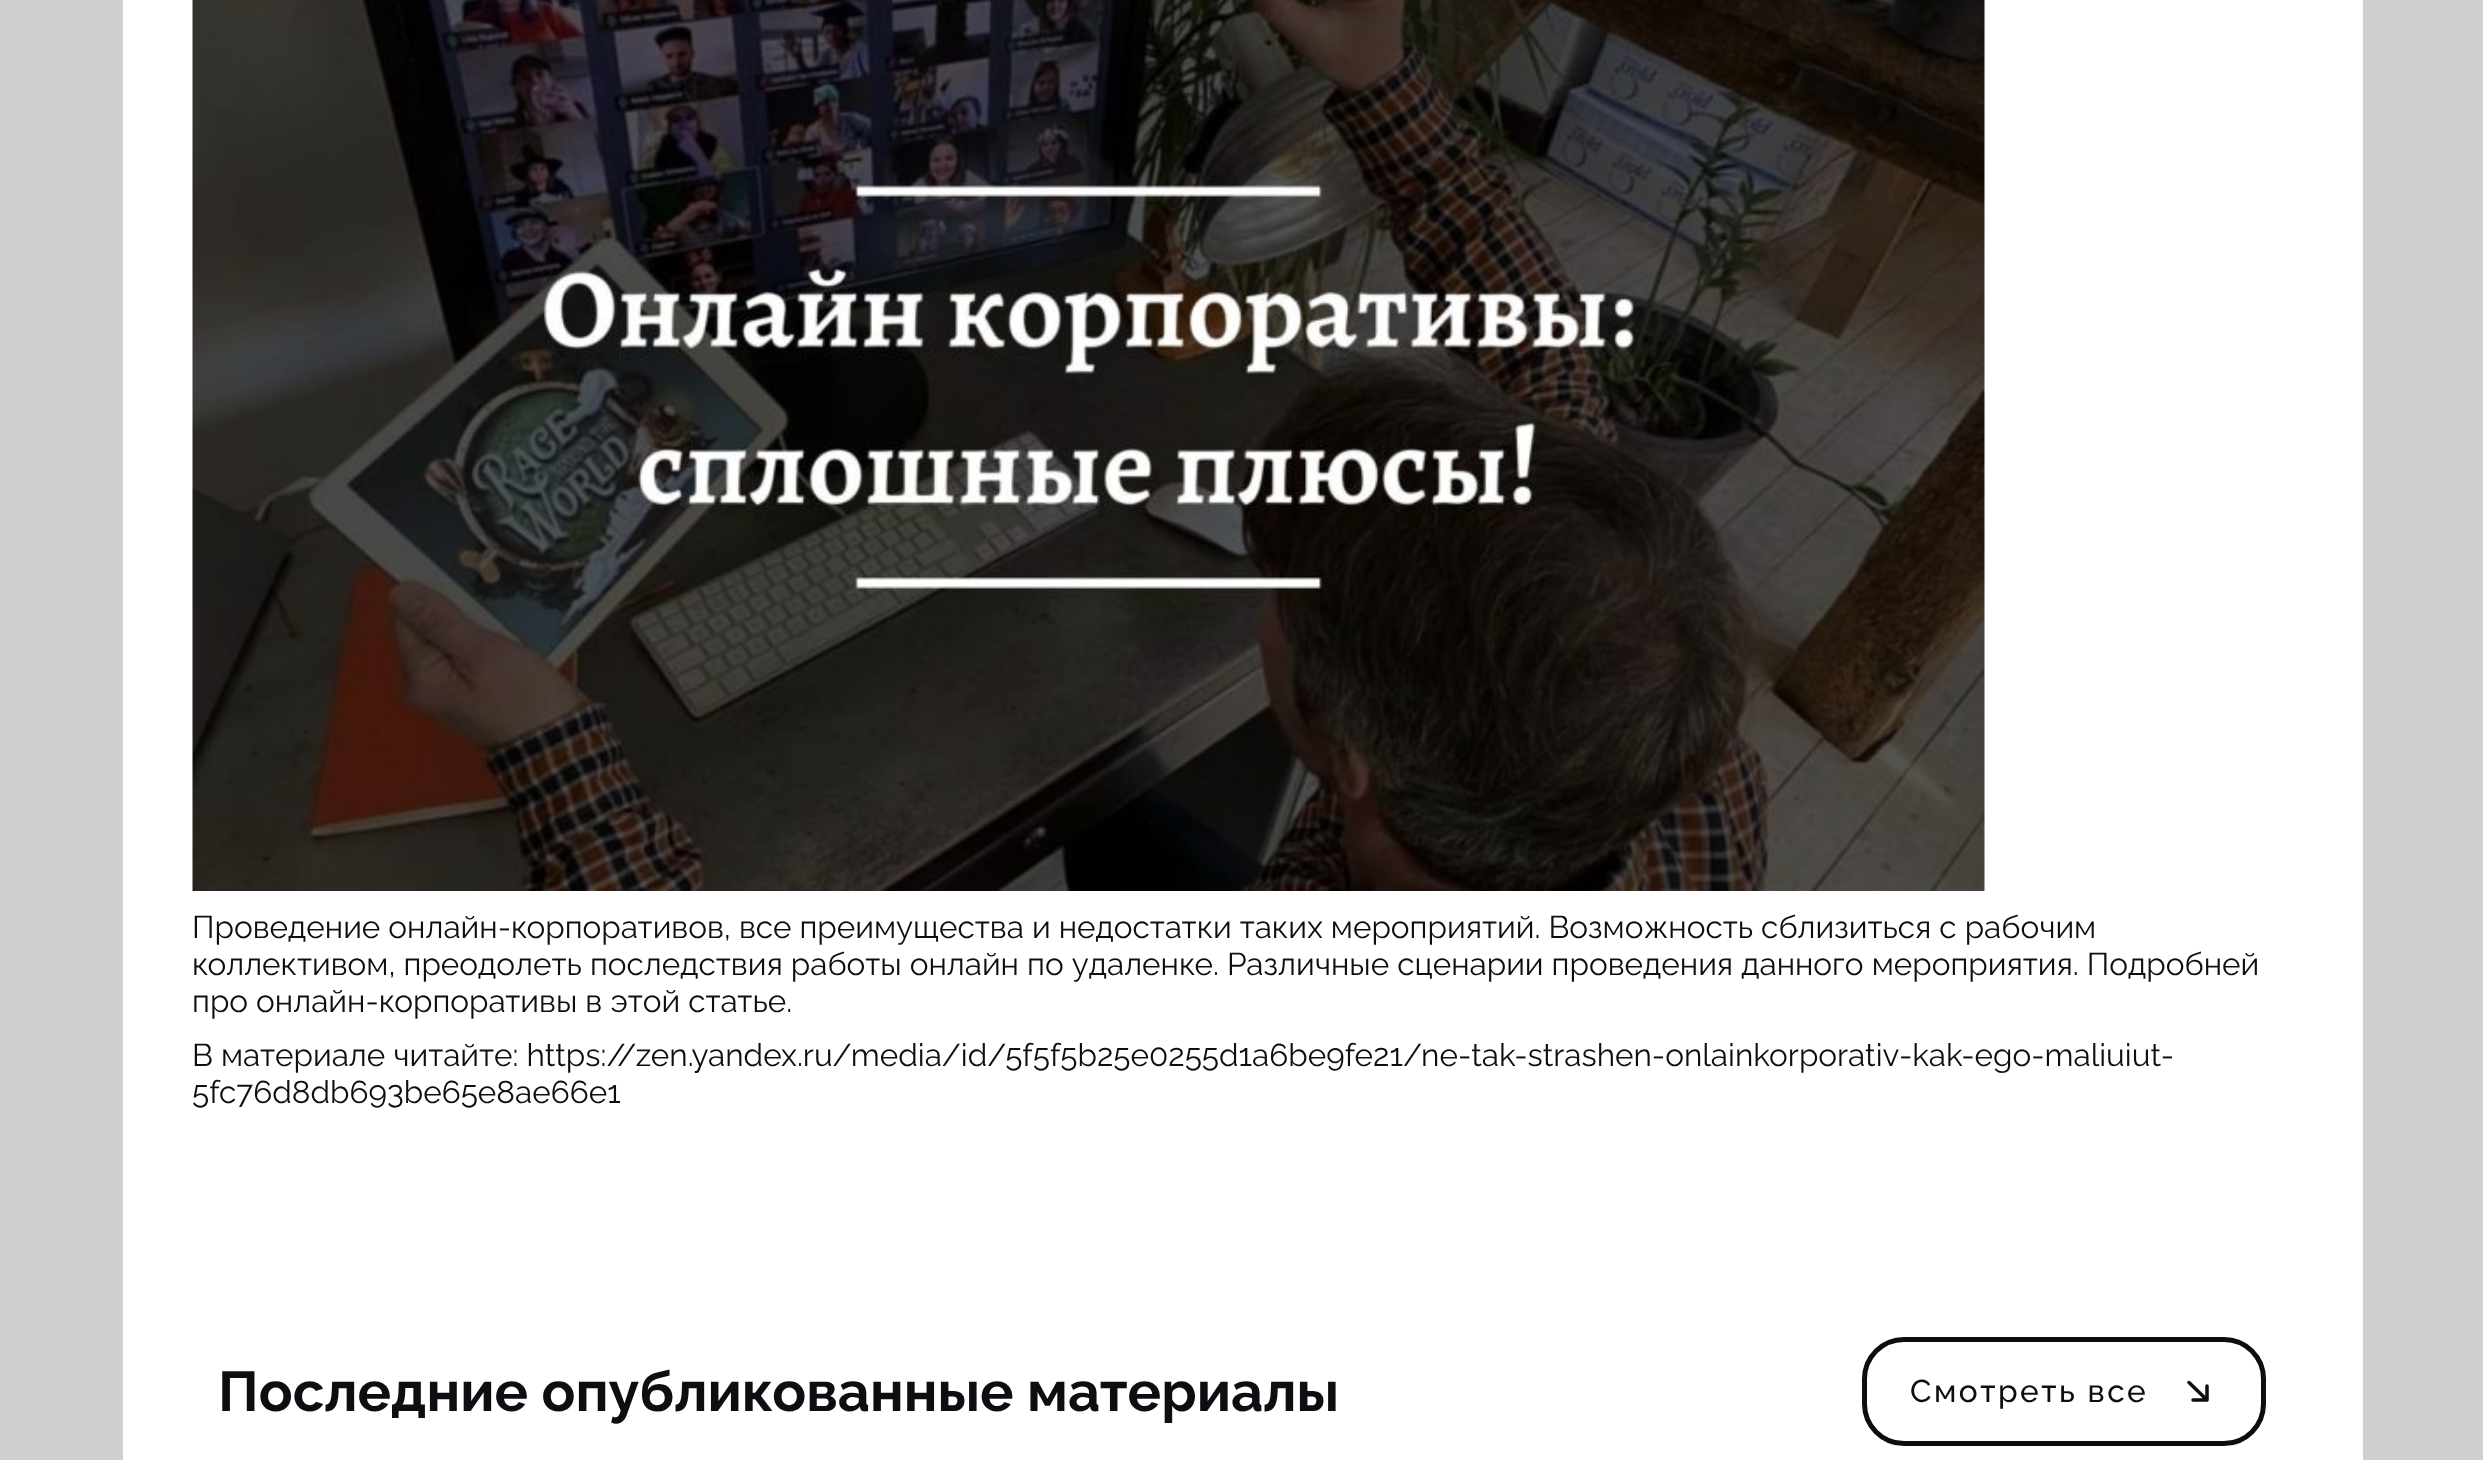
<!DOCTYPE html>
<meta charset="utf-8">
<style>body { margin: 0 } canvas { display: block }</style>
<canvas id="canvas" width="2483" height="1460"></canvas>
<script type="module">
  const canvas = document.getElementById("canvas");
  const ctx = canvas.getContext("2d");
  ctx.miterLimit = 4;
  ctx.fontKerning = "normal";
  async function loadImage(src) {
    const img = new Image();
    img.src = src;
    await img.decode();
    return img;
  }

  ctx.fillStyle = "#cecfd0";
  ctx.fillRect(0, 0, 2483, 1460);
  ctx.fillStyle = "#ffffff";
  ctx.fillRect(123, 0, 2240, 1460);
  ctx.drawImage(await loadImage("img1.png"), 192, 0, 1793, 891);
  ctx.font = "31.5px Raleway";
  ctx.fillStyle = "#0c0e12";
  ctx.fillText("Проведение онлайн-корпоративов, все преимущества и недостатки таких мероприятий. Возможность сблизиться с рабочим", 192, 938);
  ctx.fillText("коллективом, преодолеть последствия работы онлайн по удаленке. Различные сценарии проведения данного мероприятия. Подробней", 192, 975);
  ctx.fillText("про онлайн-корпоративы в этой статье.", 192, 1012);
  ctx.fillText("В материале читайте: https://zen.yandex.ru/media/id/5f5f5b25e0255d1a6be9fe21/ne-tak-strashen-onlainkorporativ-kak-ego-maliuiut-", 192, 1066);
  ctx.fillText("5fc76d8db693be65e8ae66e1", 192, 1103);
  ctx.font = "bold 56px Raleway";
  ctx.fillText("Последние опубликованные материалы", 218, 1411);
  ctx.beginPath();
  ctx.roundRect(1864.5, 1339.5, 399, 104, 39.5);
  ctx.strokeStyle = "#0c0e12";
  ctx.lineWidth = 5;
  ctx.stroke();
  ctx.letterSpacing = "2.5px";
  ctx.font = "500 31.5px Raleway";
  ctx.fillText("Смотреть все", 1910, 1402);
  ctx.beginPath();
  ctx.moveTo(2189, 1382.5);
  ctx.lineTo(2207, 1400);
  ctx.moveTo(2207, 1386);
  ctx.lineTo(2207, 1400);
  ctx.lineTo(2193, 1400);
  ctx.lineWidth = 3.5;
  ctx.lineCap = "round";
  ctx.lineJoin = "round";
  ctx.stroke();
</script>
